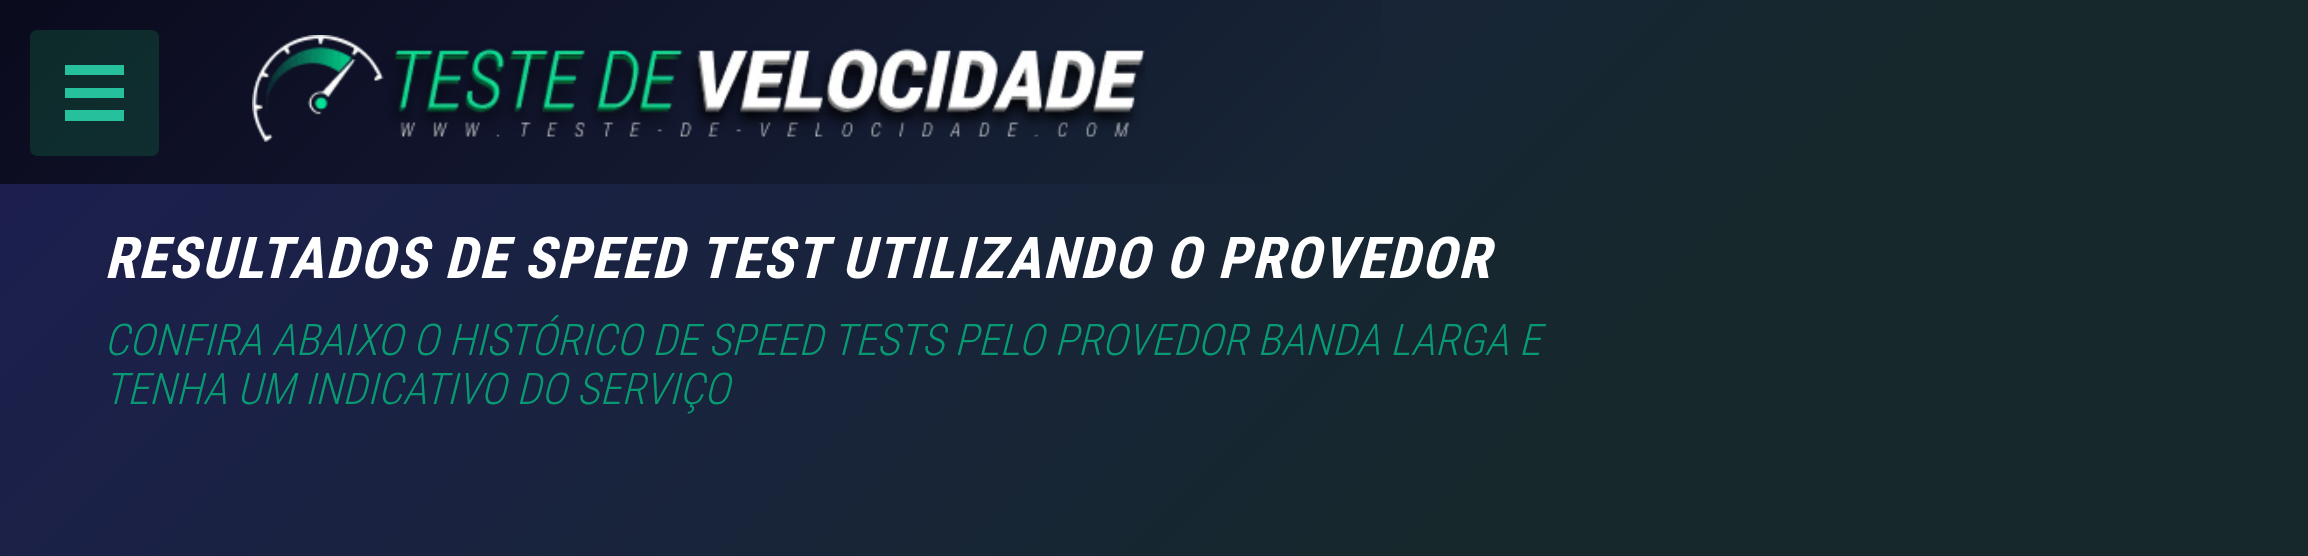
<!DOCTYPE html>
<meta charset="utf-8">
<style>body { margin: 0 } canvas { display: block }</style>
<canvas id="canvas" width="2308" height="556"></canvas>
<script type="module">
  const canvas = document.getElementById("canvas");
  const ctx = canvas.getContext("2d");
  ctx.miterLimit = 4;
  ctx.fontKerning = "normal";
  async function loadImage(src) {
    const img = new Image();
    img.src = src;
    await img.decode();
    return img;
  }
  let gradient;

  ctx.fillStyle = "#ffffff";
  ctx.fillRect(0, 0, 2308, 556);
  gradient = ctx.createLinearGradient(438, -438, 1870, 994);
  gradient.addColorStop(0, "#1d1e52");
  gradient.addColorStop(0.63, "#16272f");
  gradient.addColorStop(0.68, "#16282c");
  ctx.fillStyle = gradient;
  ctx.fillRect(0, 0, 2308, 556);
  gradient = ctx.createLinearGradient(531, -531, 1777, 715);
  gradient.addColorStop(0, "rgba(0, 0, 0, 0.65)");
  gradient.addColorStop(0.6, "rgba(0, 0, 0, 0)");
  ctx.fillStyle = gradient;
  ctx.fillRect(0, 0, 1382, 184);
  ctx.fillStyle = "rgba(27, 237, 111, 0.14)";
  ctx.beginPath();
  ctx.roundRect(30, 30, 129, 126, 7);
  ctx.fill();
  ctx.fillStyle = "#26c09c";
  ctx.fillRect(65, 65, 59, 10);
  ctx.fillRect(65, 88, 59, 10);
  ctx.fillRect(65, 110, 59, 11);
  ctx.drawImage(await loadImage("img1.png"), 252, 35, 894, 107);
  ctx.letterSpacing = "1.75px";
  ctx.font = "italic bold 57.75px Roboto Condensed";
  ctx.fillStyle = "#ffffff";
  ctx.fillText("RESULTADOS DE SPEED TEST UTILIZANDO O PROVEDOR", 104, 278);
  ctx.letterSpacing = "0px";
  ctx.font = "italic 300 43.75px Roboto Condensed";
  ctx.fillStyle = "#099972";
  ctx.fillText("CONFIRA ABAIXO O HISTÓRICO DE SPEED TESTS PELO PROVEDOR BANDA LARGA E", 104, 355);
  ctx.fillText("TENHA UM INDICATIVO DO SERVIÇO", 104, 404);
</script>
